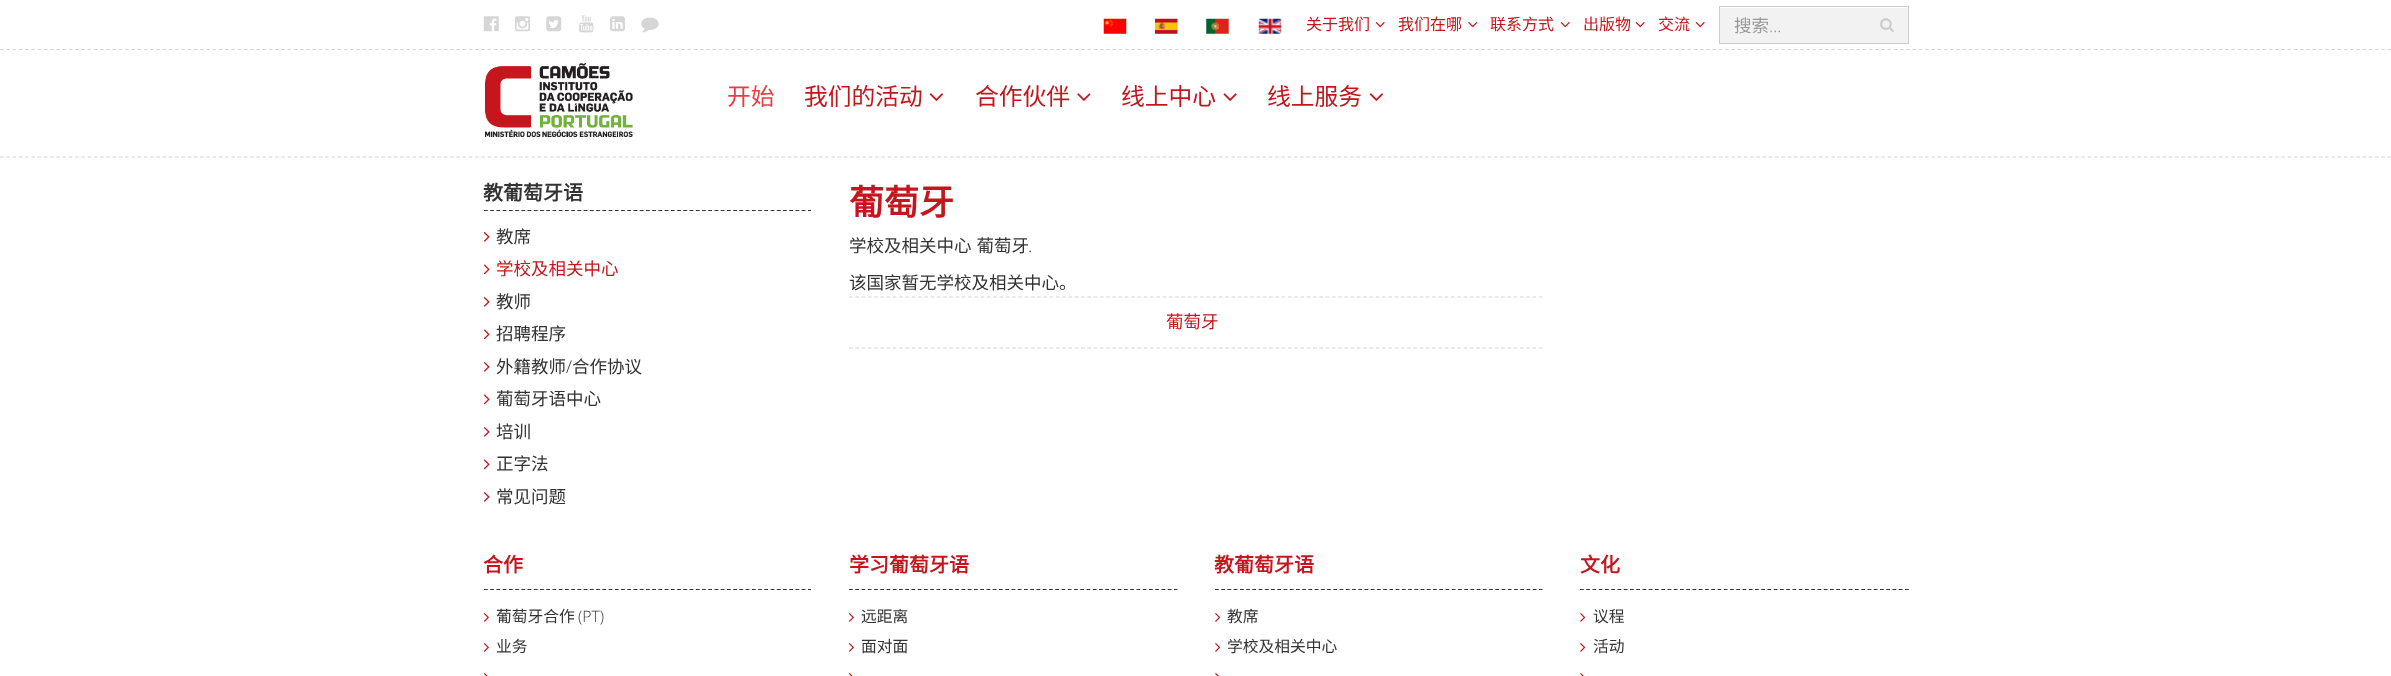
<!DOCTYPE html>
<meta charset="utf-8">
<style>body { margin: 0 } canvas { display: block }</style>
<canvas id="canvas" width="2391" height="676"></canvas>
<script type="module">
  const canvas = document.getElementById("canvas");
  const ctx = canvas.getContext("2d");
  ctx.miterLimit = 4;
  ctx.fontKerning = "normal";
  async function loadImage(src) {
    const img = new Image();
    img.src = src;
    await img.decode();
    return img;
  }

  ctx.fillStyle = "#ffffff";
  ctx.fillRect(0, 0, 2391, 676);
  ctx.beginPath();
  ctx.moveTo(0, 49.5);
  ctx.lineTo(2391, 49.5);
  ctx.strokeStyle = "#d6d6d6";
  ctx.lineWidth = 1.2;
  ctx.setLineDash([3.75, 2.5]);
  ctx.stroke();
  ctx.drawImage(await loadImage("img1.png"), 483, 16, 16, 16);
  ctx.drawImage(await loadImage("img2.png"), 515, 16, 15, 16);
  ctx.drawImage(await loadImage("img3.png"), 546, 16, 16, 16);
  ctx.drawImage(await loadImage("img4.png"), 579, 15, 15, 18);
  ctx.drawImage(await loadImage("img5.png"), 610, 16, 15, 16);
  ctx.drawImage(await loadImage("img6.png"), 641, 17, 18, 16);
  ctx.drawImage(await loadImage("img7.png"), 1103, 18, 24, 16);
  ctx.drawImage(await loadImage("img8.png"), 1155, 18, 23, 16);
  ctx.drawImage(await loadImage("img9.png"), 1206, 18, 23, 16);
  ctx.drawImage(await loadImage("img10.png"), 1258, 18, 24, 16);
  ctx.font = "16px Noto Sans CJK SC";
  ctx.fillStyle = "#c4161c";
  ctx.fillText("关于我们", 1306, 30);
  ctx.drawImage(await loadImage("img11.png"), 1375, 22, 10, 6);
  ctx.fillText("我们在哪", 1398, 30);
  ctx.drawImage(await loadImage("img12.png"), 1468, 22, 10, 6);
  ctx.fillText("联系方式", 1490, 30);
  ctx.drawImage(await loadImage("img11.png"), 1560, 22, 10, 6);
  ctx.fillText("出版物", 1583, 30);
  ctx.drawImage(await loadImage("img11.png"), 1635, 22, 10, 6);
  ctx.fillText("交流", 1658, 30);
  ctx.drawImage(await loadImage("img11.png"), 1695, 22, 10, 6);
  ctx.strokeStyle = "#cccccc";
  ctx.lineWidth = 1;
  ctx.setLineDash([]);
  ctx.strokeRect(1719.5, 6.5, 189, 37);
  ctx.fillStyle = "#f2f2f2";
  ctx.fillRect(1720, 8, 188, 35);
  ctx.font = "17.5px Noto Sans CJK SC";
  ctx.fillStyle = "#999999";
  ctx.fillText("搜索", 1734, 32);
  ctx.font = "300 17.5px Open Sans";
  ctx.fillText("...", 1769, 32);
  ctx.drawImage(await loadImage("img13.png"), 1880, 18, 14, 14);
  ctx.beginPath();
  ctx.moveTo(0, 157);
  ctx.lineTo(2391, 157);
  ctx.strokeStyle = "#d6d6d6";
  ctx.lineWidth = 1.2;
  ctx.setLineDash([3.75, 2.5]);
  ctx.stroke();
  ctx.drawImage(await loadImage("img14.png"), 485, 63, 148, 74);
  ctx.font = "23.75px Noto Sans CJK SC";
  ctx.fillStyle = "#e93d43";
  ctx.fillText("开始", 727, 105);
  ctx.fillStyle = "#c4161c";
  ctx.fillText("我们的活动", 804, 105);
  ctx.drawImage(await loadImage("img15.png"), 929, 93, 14, 8);
  ctx.fillText("合作伙伴", 975, 105);
  ctx.drawImage(await loadImage("img16.png"), 1077, 93, 14, 8);
  ctx.fillText("线上中心", 1121, 105);
  ctx.drawImage(await loadImage("img17.png"), 1223, 93, 14, 8);
  ctx.fillText("线上服务", 1267, 105);
  ctx.drawImage(await loadImage("img15.png"), 1369, 93, 14, 8);
  ctx.beginPath();
  ctx.moveTo(484, 210.5);
  ctx.lineTo(811, 210.5);
  ctx.strokeStyle = "#333333";
  ctx.setLineDash([3.75, 2.48]);
  ctx.stroke();
  ctx.font = "bold 20px Noto Sans CJK SC";
  ctx.fillStyle = "#333333";
  ctx.fillText("教葡萄牙语", 483, 200);
  ctx.drawImage(await loadImage("img18.png"), 483, 232, 7, 10);
  ctx.font = "17.5px Noto Sans CJK SC";
  ctx.fillText("教席", 496, 243);
  ctx.drawImage(await loadImage("img19.png"), 483, 264, 7, 11);
  ctx.fillStyle = "#c4161c";
  ctx.fillText("学校及相关中心", 496, 275);
  ctx.drawImage(await loadImage("img18.png"), 483, 297, 7, 10);
  ctx.fillStyle = "#333333";
  ctx.fillText("教师", 496, 308);
  ctx.drawImage(await loadImage("img19.png"), 483, 329, 7, 11);
  ctx.fillText("招聘程序", 496, 340);
  ctx.drawImage(await loadImage("img18.png"), 483, 362, 7, 10);
  ctx.fillText("外籍教师", 496, 373);
  ctx.font = "300 17.5px Open Sans";
  ctx.fillText("/", 566, 373);
  ctx.font = "17.5px Noto Sans CJK SC";
  ctx.fillText("合作协议", 572, 373);
  ctx.drawImage(await loadImage("img19.png"), 483, 394, 7, 11);
  ctx.fillText("葡萄牙语中心", 496, 405);
  ctx.drawImage(await loadImage("img18.png"), 483, 427, 7, 10);
  ctx.fillText("培训", 496, 438);
  ctx.drawImage(await loadImage("img19.png"), 483, 459, 7, 11);
  ctx.fillText("正字法", 496, 470);
  ctx.drawImage(await loadImage("img18.png"), 483, 492, 7, 10);
  ctx.fillText("常见问题", 496, 503);
  ctx.font = "bold 35px Noto Sans CJK SC";
  ctx.fillStyle = "#c4161c";
  ctx.fillText("葡萄牙", 849, 215);
  ctx.wordSpacing = "1px";
  ctx.font = "17.5px Noto Sans CJK SC";
  ctx.fillStyle = "#333333";
  ctx.fillText("学校及相关中心 葡萄牙", 849, 252);
  ctx.wordSpacing = "0px";
  ctx.font = "300 17.5px Open Sans";
  ctx.fillText(".", 1028, 252);
  ctx.font = "17.5px Noto Sans CJK SC";
  ctx.fillText("该国家暂无学校及相关中心。", 849, 289);
  ctx.beginPath();
  ctx.moveTo(849, 297);
  ctx.lineTo(1542.5, 297);
  ctx.strokeStyle = "#d6d6d6";
  ctx.setLineDash([3.75, 2.52]);
  ctx.stroke();
  ctx.beginPath();
  ctx.moveTo(849, 348);
  ctx.lineTo(1542.5, 348);
  ctx.stroke();
  ctx.fillStyle = "#c4161c";
  ctx.fillText("葡萄牙", 1166, 328);
  ctx.beginPath();
  ctx.moveTo(484, 589.5);
  ctx.lineTo(811, 589.5);
  ctx.strokeStyle = "#333333";
  ctx.setLineDash([3.75, 2.48]);
  ctx.stroke();
  ctx.font = "bold 20px Noto Sans CJK SC";
  ctx.fillText("合作", 483, 572);
  ctx.drawImage(await loadImage("img20.png"), 483, 613, 6, 9);
  ctx.font = "15.75px Noto Sans CJK SC";
  ctx.fillStyle = "#333333";
  ctx.fillText("葡萄牙合作", 496, 622);
  ctx.font = "300 15.75px Open Sans";
  ctx.fillText("(PT)", 578, 622);
  ctx.drawImage(await loadImage("img20.png"), 483, 643, 6, 9);
  ctx.font = "15.75px Noto Sans CJK SC";
  ctx.fillText("业务", 496, 652);
  ctx.drawImage(await loadImage("img21.png"), 483, 673, 5, 3);
  ctx.beginPath();
  ctx.moveTo(849, 589.5);
  ctx.lineTo(1177.5, 589.5);
  ctx.setLineDash([3.75, 2.5]);
  ctx.stroke();
  ctx.font = "bold 20px Noto Sans CJK SC";
  ctx.fillStyle = "#c4161c";
  ctx.fillText("学习葡萄牙语", 849, 572);
  ctx.drawImage(await loadImage("img20.png"), 848, 613, 6, 9);
  ctx.font = "15.75px Noto Sans CJK SC";
  ctx.fillStyle = "#333333";
  ctx.fillText("远距离", 861, 622);
  ctx.drawImage(await loadImage("img20.png"), 848, 643, 6, 9);
  ctx.fillText("面对面", 861, 652);
  ctx.drawImage(await loadImage("img21.png"), 848, 673, 5, 3);
  ctx.beginPath();
  ctx.moveTo(1215, 589.5);
  ctx.lineTo(1542.5, 589.5);
  ctx.setLineDash([3.75, 2.48]);
  ctx.stroke();
  ctx.font = "bold 20px Noto Sans CJK SC";
  ctx.fillStyle = "#c4161c";
  ctx.fillText("教葡萄牙语", 1214, 572);
  ctx.drawImage(await loadImage("img22.png"), 1215, 613, 6, 9);
  ctx.font = "15.75px Noto Sans CJK SC";
  ctx.fillStyle = "#333333";
  ctx.fillText("教席", 1227, 622);
  ctx.drawImage(await loadImage("img22.png"), 1215, 643, 6, 9);
  ctx.fillText("学校及相关中心", 1227, 652);
  ctx.drawImage(await loadImage("img23.png"), 1215, 673, 4, 3);
  ctx.beginPath();
  ctx.moveTo(1580, 589.5);
  ctx.lineTo(1909, 589.5);
  ctx.setLineDash([3.75, 2.5]);
  ctx.stroke();
  ctx.font = "bold 20px Noto Sans CJK SC";
  ctx.fillStyle = "#c4161c";
  ctx.fillText("文化", 1580, 572);
  ctx.drawImage(await loadImage("img22.png"), 1580, 613, 6, 9);
  ctx.font = "15.75px Noto Sans CJK SC";
  ctx.fillStyle = "#333333";
  ctx.fillText("议程", 1593, 622);
  ctx.drawImage(await loadImage("img22.png"), 1580, 643, 6, 9);
  ctx.fillText("活动", 1593, 652);
  ctx.drawImage(await loadImage("img23.png"), 1580, 673, 4, 3);
</script>
